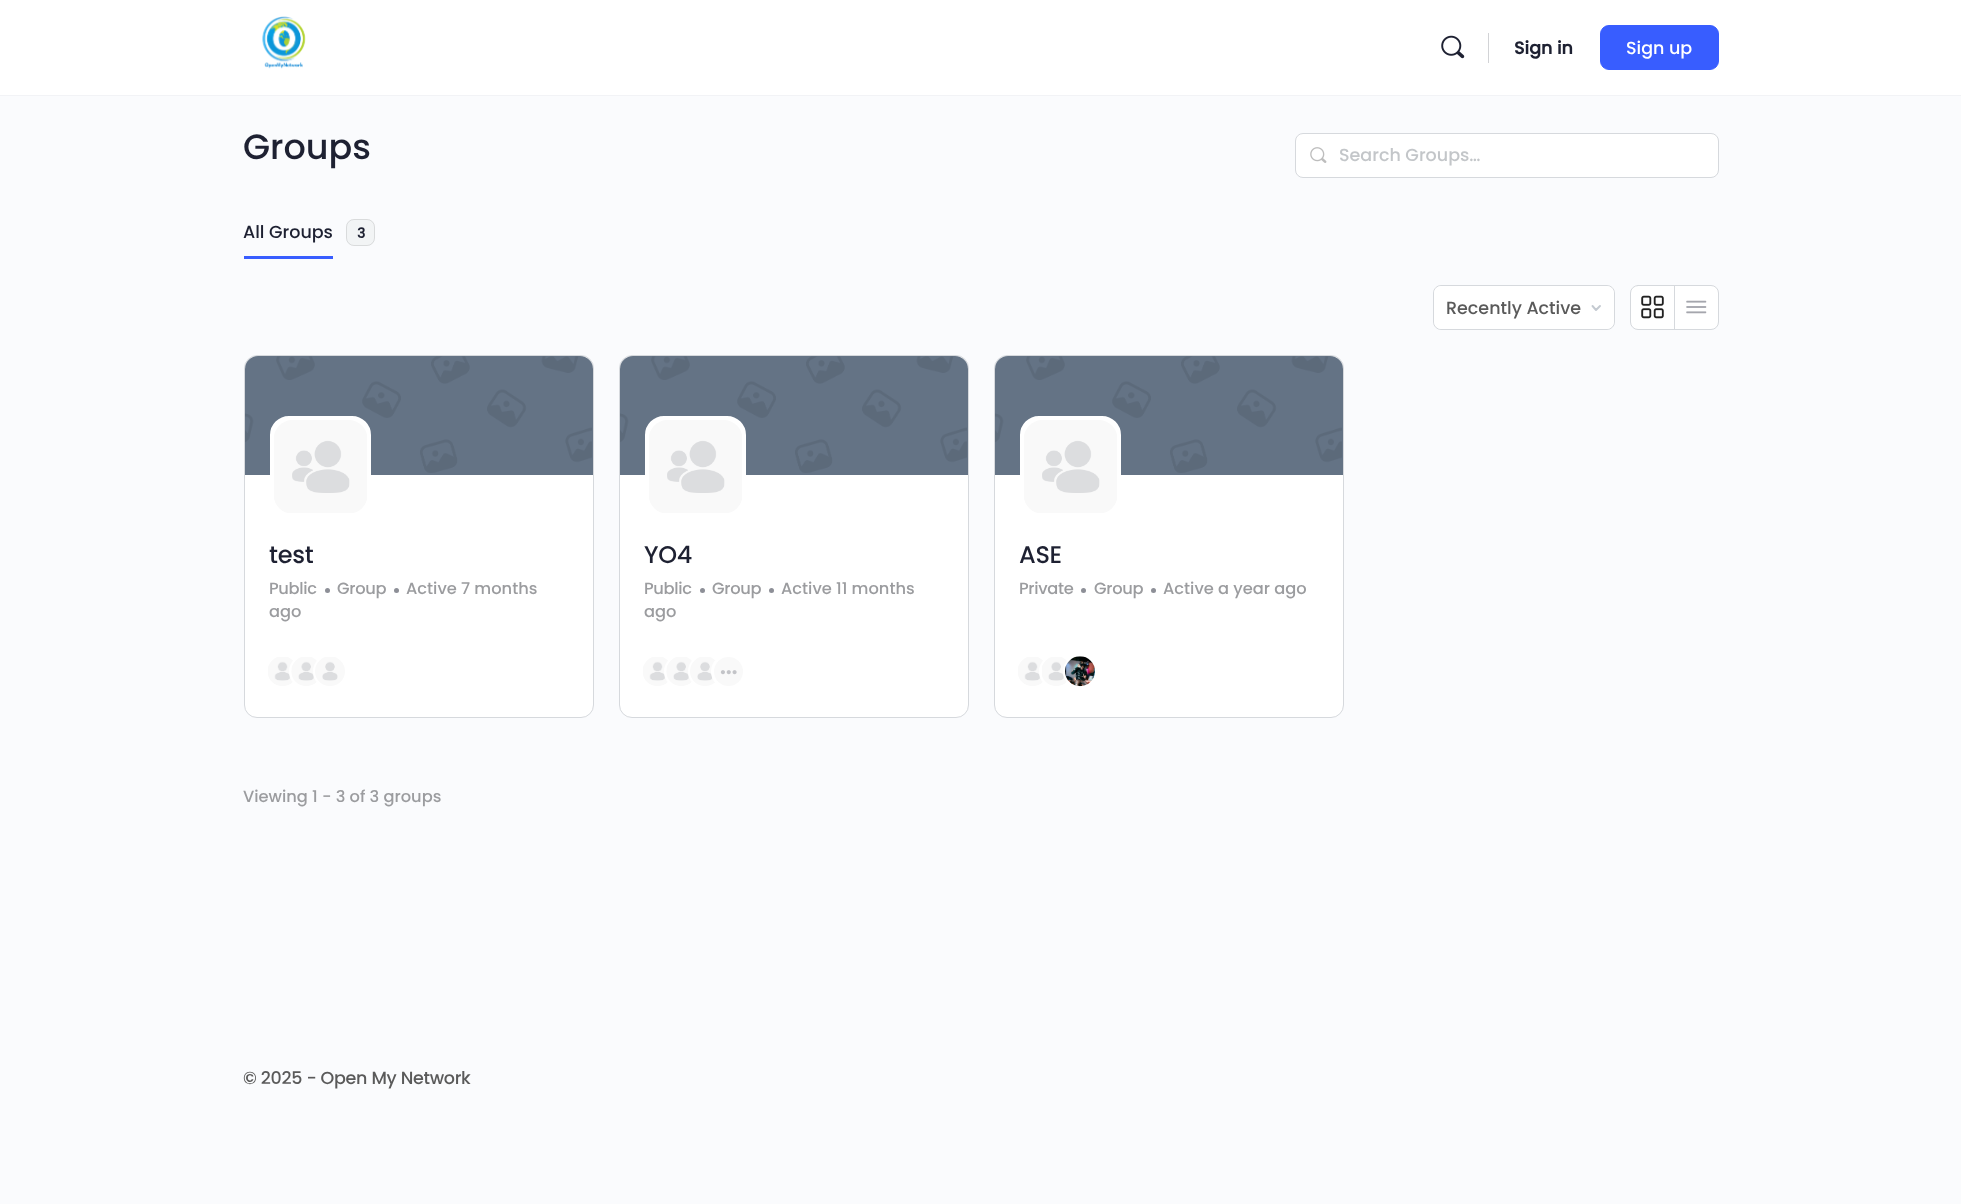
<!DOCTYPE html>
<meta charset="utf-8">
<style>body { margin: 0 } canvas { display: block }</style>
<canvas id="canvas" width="1961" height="1204"></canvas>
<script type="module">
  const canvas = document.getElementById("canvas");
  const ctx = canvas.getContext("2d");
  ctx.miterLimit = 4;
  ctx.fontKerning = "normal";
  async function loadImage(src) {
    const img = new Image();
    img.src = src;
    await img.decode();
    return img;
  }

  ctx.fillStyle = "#fafbfd";
  ctx.fillRect(0, 0, 1961, 1204);
  ctx.fillStyle = "#f2f3f6";
  ctx.fillRect(0, 95, 1961, 1);
  ctx.fillStyle = "#ffffff";
  ctx.fillRect(0, 0, 1961, 95);
  ctx.drawImage(await loadImage("img1.png"), 262, 16, 44, 53);
  ctx.drawImage(await loadImage("img2.png"), 1441, 35, 24, 24);
  ctx.fillStyle = "#d2d3d6";
  ctx.fillRect(1488, 33, 1, 30);
  ctx.font = "bold 17.5px Poppins";
  ctx.fillStyle = "#1e2132";
  ctx.fillText("Sign in", 1514, 54);
  ctx.fillStyle = "#385dff";
  ctx.beginPath();
  ctx.roundRect(1600.5, 25.5, 118, 44, 8.5);
  ctx.fill();
  ctx.strokeStyle = "#385dff";
  ctx.stroke();
  ctx.font = "500 17.5px Poppins";
  ctx.fillStyle = "#ffffff";
  ctx.fillText("Sign up", 1626, 54);
  ctx.font = "500 35px Poppins";
  ctx.fillStyle = "#1e2132";
  ctx.fillText("Groups", 243, 159);
  ctx.fillStyle = "#ffffff";
  ctx.beginPath();
  ctx.roundRect(1295.5, 133.5, 423, 44, 7.5);
  ctx.fill();
  ctx.strokeStyle = "#d6d9dd";
  ctx.stroke();
  ctx.drawImage(await loadImage("img3.png"), 1310, 147, 17, 16);
  ctx.font = "500 17.5px Poppins";
  ctx.fillStyle = "#c3c6c9";
  ctx.fillText("Search Groups…", 1339, 161);
  ctx.fillStyle = "#1e2132";
  ctx.fillText("All Groups", 243, 238);
  ctx.fillStyle = "#385dff";
  ctx.fillRect(244, 256, 89, 3);
  ctx.fillStyle = "#f2f4f5";
  ctx.beginPath();
  ctx.roundRect(346, 219, 29, 27, 8);
  ctx.fill();
  ctx.beginPath();
  ctx.roundRect(346.5, 219.5, 28, 26, 7.5);
  ctx.strokeStyle = "rgba(0, 0, 0, 0.1)";
  ctx.stroke();
  ctx.font = "bold 14px Poppins";
  ctx.fillStyle = "#1e2132";
  ctx.fillText("3", 357, 238);
  ctx.fillStyle = "#ffffff";
  ctx.beginPath();
  ctx.roundRect(1433.5, 285.5, 181, 44, 7.5);
  ctx.fill();
  ctx.strokeStyle = "#d6d9dd";
  ctx.stroke();
  ctx.beginPath();
  ctx.roundRect(1434, 286, 180, 43, 8);
  ctx.fill();
  ctx.beginPath();
  ctx.moveTo(1600, 306);
  ctx.lineTo(1596, 310);
  ctx.lineTo(1592.5, 306);
  ctx.strokeStyle = "#c4cad1";
  ctx.lineWidth = 1.9;
  ctx.lineCap = "round";
  ctx.lineJoin = "round";
  ctx.stroke();
  ctx.font = "500 17.5px Poppins";
  ctx.fillStyle = "#5a5a5a";
  ctx.fillText("Recently Active", 1446, 314);
  ctx.fillStyle = "#ffffff";
  ctx.beginPath();
  ctx.roundRect(1630.5, 285.5, 88, 44, 7.5);
  ctx.fill();
  ctx.strokeStyle = "#d6d9dd";
  ctx.lineWidth = 1;
  ctx.lineJoin = "miter";
  ctx.stroke();
  ctx.fillStyle = "#d6d9dd";
  ctx.fillRect(1674, 285, 1, 45);
  ctx.drawImage(await loadImage("img4.png"), 1641, 295, 23, 24);
  ctx.drawImage(await loadImage("img5.png"), 1686, 300, 21, 14);
  ctx.fillStyle = "#ffffff";
  ctx.beginPath();
  ctx.roundRect(244.5, 355.5, 349, 362, 12.5);
  ctx.fill();
  ctx.stroke();
  ctx.fillStyle = "#647385";
  ctx.beginPath();
  ctx.roundRect(245, 356, 348, 119, [13, 13, 0, 0]);
  ctx.fill();
  ctx.drawImage(await loadImage("img6.png"), 245, 356, 347, 117);
  ctx.fillStyle = "#ffffff";
  ctx.beginPath();
  ctx.roundRect(272, 418, 97, 98, 17);
  ctx.fill();
  ctx.strokeStyle = "#ffffff";
  ctx.lineWidth = 4;
  ctx.stroke();
  ctx.drawImage(await loadImage("img7.png"), 274, 420, 93, 93);
  ctx.letterSpacing = "-0.3px";
  ctx.font = "500 24px Poppins";
  ctx.fillStyle = "#1e2132";
  ctx.fillText("test", 269, 563);
  ctx.fillStyle = "#8d8f97";
  ctx.beginPath();
  ctx.arc(396.5, 590.5, 2.5, 0, Math.PI * 2);
  ctx.fill();
  ctx.letterSpacing = "0px";
  ctx.font = "500 16.25px Poppins";
  ctx.fillStyle = "#9b9c9f";
  ctx.fillText("Active 7 months", 406, 594);
  ctx.fillText("ago", 269, 617);
  ctx.letterSpacing = "-0.3px";
  ctx.fillText("Public", 269, 594);
  ctx.fillStyle = "#8d8f97";
  ctx.beginPath();
  ctx.arc(327.5, 590.5, 2.5, 0, Math.PI * 2);
  ctx.fill();
  ctx.fillStyle = "#9b9c9f";
  ctx.fillText("Group", 337, 594);
  ctx.drawImage(await loadImage("img8.png"), 268, 657, 26, 29);
  ctx.fillStyle = "#ffffff";
  ctx.beginPath();
  ctx.arc(306.5, 671.5, 17.5, 0, Math.PI * 2);
  ctx.fill();
  ctx.drawImage(await loadImage("img9.png"), 291, 657, 26, 29);
  ctx.beginPath();
  ctx.arc(330.5, 671.5, 17.5, 0, Math.PI * 2);
  ctx.fill();
  ctx.drawImage(await loadImage("img10.png"), 315, 657, 30, 29);
  ctx.beginPath();
  ctx.roundRect(619.5, 355.5, 349, 362, 12.5);
  ctx.fill();
  ctx.strokeStyle = "#d6d9dd";
  ctx.lineWidth = 1;
  ctx.stroke();
  ctx.fillStyle = "#647385";
  ctx.beginPath();
  ctx.roundRect(620, 356, 348, 119, [13, 13, 0, 0]);
  ctx.fill();
  ctx.drawImage(await loadImage("img11.png"), 620, 356, 347, 117);
  ctx.fillStyle = "#ffffff";
  ctx.beginPath();
  ctx.roundRect(647, 418, 97, 98, 17);
  ctx.fill();
  ctx.strokeStyle = "#ffffff";
  ctx.lineWidth = 4;
  ctx.stroke();
  ctx.drawImage(await loadImage("img12.png"), 649, 420, 93, 93);
  ctx.font = "500 24px Poppins";
  ctx.fillStyle = "#1e2132";
  ctx.fillText("YO4", 644, 563);
  ctx.fillStyle = "#8d8f97";
  ctx.beginPath();
  ctx.arc(771.5, 590.5, 2.5, 0, Math.PI * 2);
  ctx.fill();
  ctx.letterSpacing = "0px";
  ctx.font = "500 16.25px Poppins";
  ctx.fillStyle = "#9b9c9f";
  ctx.fillText("Active 11 months", 781, 594);
  ctx.fillText("ago", 644, 617);
  ctx.letterSpacing = "-0.3px";
  ctx.fillText("Public", 644, 594);
  ctx.fillStyle = "#8d8f97";
  ctx.beginPath();
  ctx.arc(702.5, 590.5, 2.5, 0, Math.PI * 2);
  ctx.fill();
  ctx.fillStyle = "#9b9c9f";
  ctx.fillText("Group", 712, 594);
  ctx.drawImage(await loadImage("img13.png"), 643, 657, 26, 29);
  ctx.fillStyle = "#ffffff";
  ctx.beginPath();
  ctx.arc(681.5, 671.5, 17.5, 0, Math.PI * 2);
  ctx.fill();
  ctx.drawImage(await loadImage("img14.png"), 666, 657, 26, 29);
  ctx.beginPath();
  ctx.arc(705.5, 671.5, 17.5, 0, Math.PI * 2);
  ctx.fill();
  ctx.drawImage(await loadImage("img15.png"), 690, 657, 26, 29);
  ctx.fillStyle = "#f9f9f9";
  ctx.beginPath();
  ctx.arc(728.5, 671.5, 16, 0, Math.PI * 2);
  ctx.fill();
  ctx.lineWidth = 3;
  ctx.stroke();
  ctx.drawImage(await loadImage("img16.png"), 720, 670, 17, 5);
  ctx.fillStyle = "#ffffff";
  ctx.beginPath();
  ctx.roundRect(994.5, 355.5, 349, 362, 12.5);
  ctx.fill();
  ctx.strokeStyle = "#d6d9dd";
  ctx.lineWidth = 1;
  ctx.stroke();
  ctx.fillStyle = "#647385";
  ctx.beginPath();
  ctx.roundRect(995, 356, 348, 119, [13, 13, 0, 0]);
  ctx.fill();
  ctx.drawImage(await loadImage("img11.png"), 995, 356, 347, 117);
  ctx.fillStyle = "#ffffff";
  ctx.beginPath();
  ctx.roundRect(1022, 418, 97, 98, 17);
  ctx.fill();
  ctx.strokeStyle = "#ffffff";
  ctx.lineWidth = 4;
  ctx.stroke();
  ctx.drawImage(await loadImage("img12.png"), 1024, 420, 93, 93);
  ctx.font = "500 24px Poppins";
  ctx.fillStyle = "#1e2132";
  ctx.fillText("ASE", 1019, 563);
  ctx.font = "500 16.25px Poppins";
  ctx.fillStyle = "#9b9c9f";
  ctx.fillText("Private", 1019, 594);
  ctx.fillStyle = "#8d8f97";
  ctx.beginPath();
  ctx.arc(1083.5, 590.5, 2.5, 0, Math.PI * 2);
  ctx.fill();
  ctx.fillStyle = "#9b9c9f";
  ctx.fillText("Group", 1094, 594);
  ctx.fillStyle = "#8d8f97";
  ctx.beginPath();
  ctx.arc(1153.5, 590.5, 2.5, 0, Math.PI * 2);
  ctx.fill();
  ctx.letterSpacing = "0px";
  ctx.fillStyle = "#9b9c9f";
  ctx.fillText("Active a year ago", 1163, 594);
  ctx.drawImage(await loadImage("img8.png"), 1018, 657, 26, 29);
  ctx.fillStyle = "#ffffff";
  ctx.beginPath();
  ctx.arc(1056.5, 671.5, 17.5, 0, Math.PI * 2);
  ctx.fill();
  ctx.drawImage(await loadImage("img17.png"), 1042, 657, 25, 29);
  ctx.beginPath();
  ctx.arc(1080.5, 671.5, 17.5, 0, Math.PI * 2);
  ctx.fill();
  ctx.drawImage(await loadImage("img18.png"), 1065, 656, 30, 31);
  ctx.fillStyle = "#9b9c9f";
  ctx.fillText("Viewing 1 - 3 of 3 groups", 243, 802);
  ctx.letterSpacing = "-0.3px";
  ctx.font = "500 17.5px Poppins";
  ctx.fillStyle = "#5a5a5a";
  ctx.fillText("© 2025 - Open My Network", 243, 1084);
</script>
